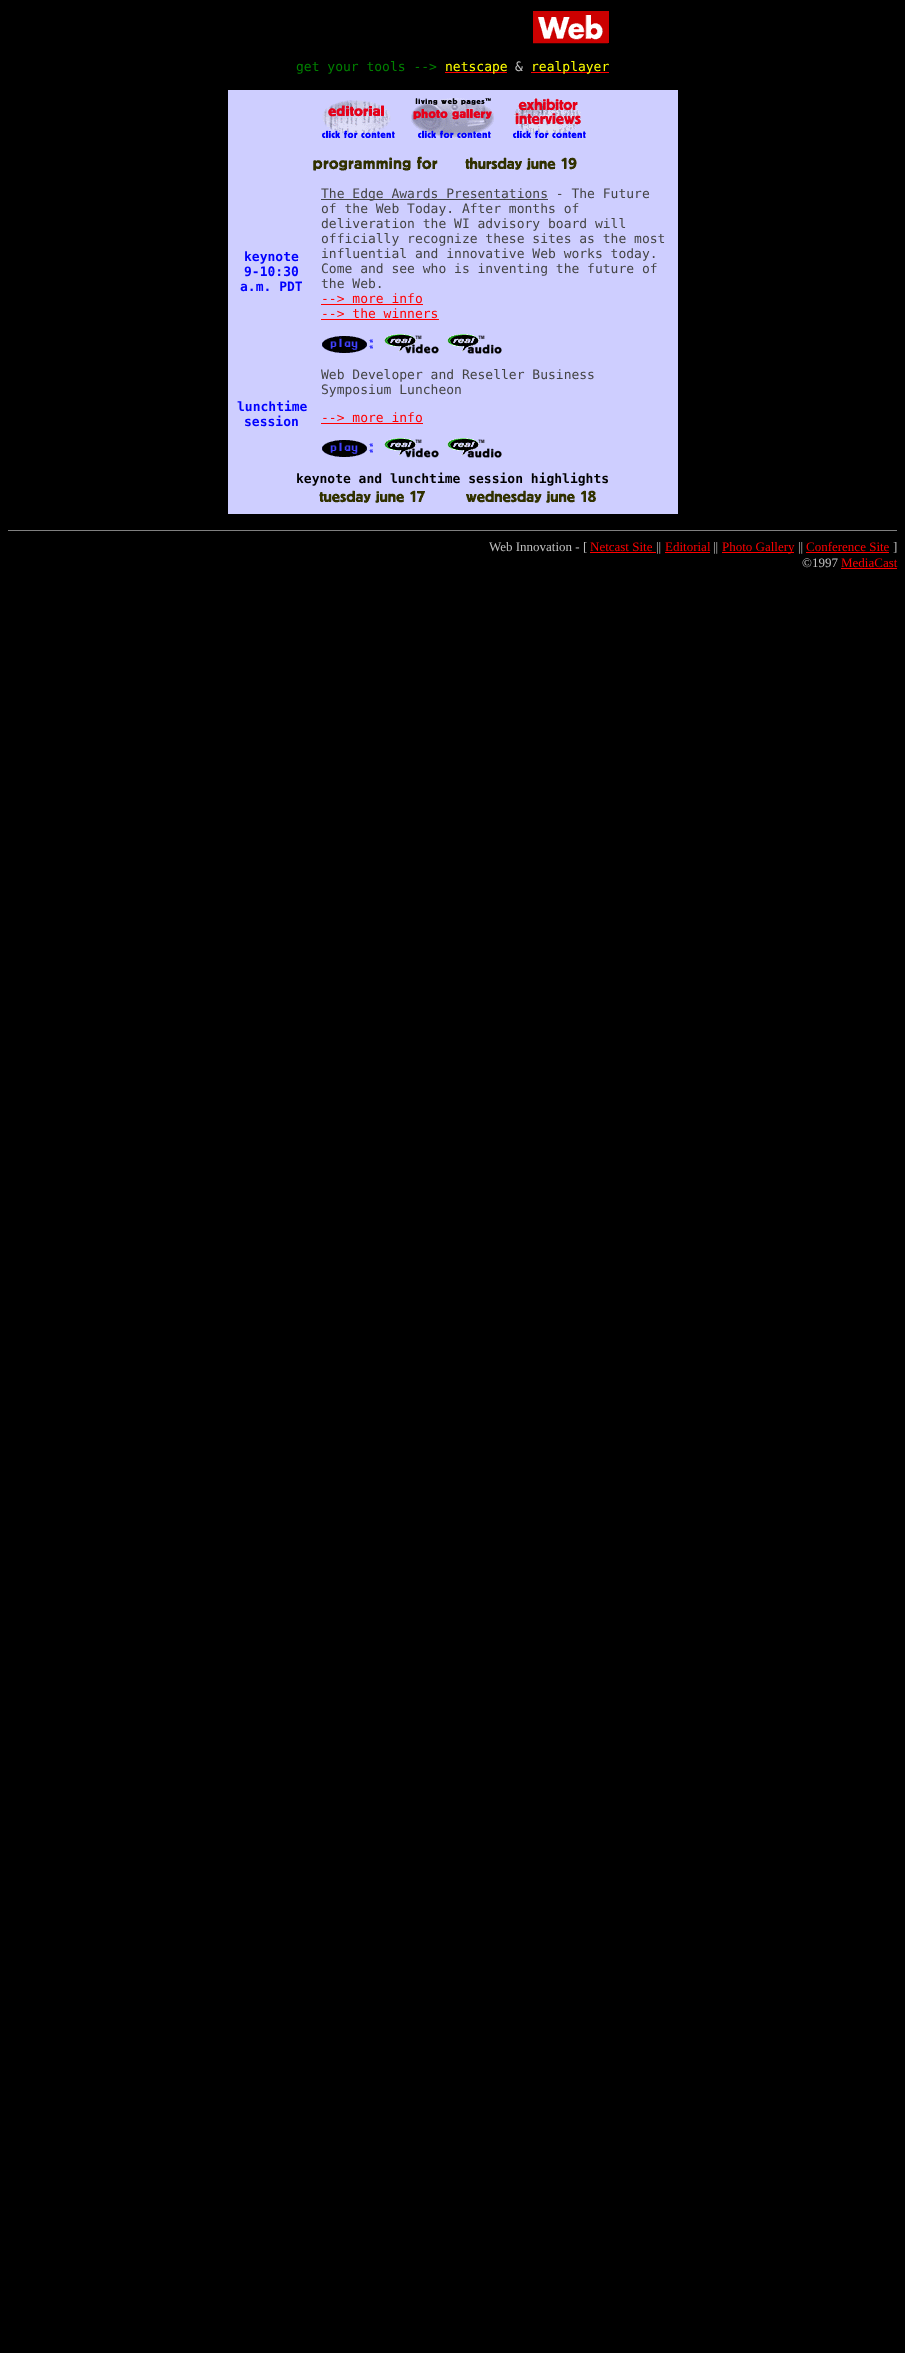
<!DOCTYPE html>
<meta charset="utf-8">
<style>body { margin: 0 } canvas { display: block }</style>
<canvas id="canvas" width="905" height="2353"></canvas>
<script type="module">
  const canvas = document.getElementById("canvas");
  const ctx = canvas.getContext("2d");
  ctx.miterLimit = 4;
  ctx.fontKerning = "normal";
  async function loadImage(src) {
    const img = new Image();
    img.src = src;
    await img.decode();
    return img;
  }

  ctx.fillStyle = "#000000";
  ctx.fillRect(0, 0, 905, 2353);
  ctx.drawImage(await loadImage("img1.png"), 533, 11, 76, 33);
  ctx.font = "13px DejaVu Sans Mono";
  ctx.fillStyle = "#008000";
  ctx.fillText("get your tools -->", 296, 71);
  ctx.fillStyle = "#ff0000";
  ctx.fillRect(445, 72, 62, 1);
  ctx.fillStyle = "#ffff00";
  ctx.fillText("netscape", 445, 71);
  ctx.fillStyle = "#c0c0c0";
  ctx.fillText("&", 515, 71);
  ctx.fillStyle = "#ff0000";
  ctx.fillRect(531, 72, 78, 1);
  ctx.fillStyle = "#ffff00";
  ctx.fillText("realplayer", 531, 71);
  ctx.fillStyle = "#ceceff";
  ctx.fillRect(228, 90, 450, 424);
  ctx.drawImage(await loadImage("img2.png"), 322, 100, 73, 38);
  ctx.drawImage(await loadImage("img3.png"), 411, 98, 83, 41);
  ctx.drawImage(await loadImage("img4.png"), 513, 98, 73, 40);
  ctx.drawImage(await loadImage("img5.png"), 313, 156, 125, 15);
  ctx.drawImage(await loadImage("img6.png"), 465, 157, 112, 13);
  ctx.font = "bold 13px DejaVu Sans Mono";
  ctx.fillStyle = "#0000ff";
  ctx.fillText("keynote", 244, 261);
  ctx.fillText("9-10:30", 244, 276);
  ctx.fillText("a.m. PDT", 240, 291);
  ctx.fillStyle = "#444444";
  ctx.fillRect(321, 199, 227, 1);
  ctx.font = "13px DejaVu Sans Mono";
  ctx.fillText("The Edge Awards Presentations - The Future", 321, 198);
  ctx.fillText("of the Web Today. After months of", 321, 213);
  ctx.fillText("deliveration the WI advisory board will", 321, 228);
  ctx.fillText("officially recognize these sites as the most", 321, 243);
  ctx.fillText("influential and innovative Web works today.", 321, 258);
  ctx.fillText("Come and see who is inventing the future of", 321, 273);
  ctx.fillText("the Web.", 321, 288);
  ctx.fillStyle = "#ff0000";
  ctx.fillText("--> more info", 321, 303);
  ctx.fillRect(321, 304, 102, 1);
  ctx.fillText("--> the winners", 321, 318);
  ctx.fillRect(321, 319, 118, 1);
  ctx.drawImage(await loadImage("img7.png"), 322, 336, 51, 17);
  ctx.drawImage(await loadImage("img8.png"), 384, 334, 55, 20);
  ctx.drawImage(await loadImage("img9.png"), 447, 334, 55, 20);
  ctx.font = "bold 13px DejaVu Sans Mono";
  ctx.fillStyle = "#0000ff";
  ctx.fillText("lunchtime", 237, 411);
  ctx.fillText("session", 244, 426);
  ctx.font = "13px DejaVu Sans Mono";
  ctx.fillStyle = "#444444";
  ctx.fillText("Web Developer and Reseller Business", 321, 379);
  ctx.fillText("Symposium Luncheon", 321, 394);
  ctx.fillStyle = "#ff0000";
  ctx.fillText("--> more info", 321, 422);
  ctx.fillRect(321, 423, 102, 1);
  ctx.drawImage(await loadImage("img7.png"), 322, 440, 51, 17);
  ctx.drawImage(await loadImage("img8.png"), 384, 438, 55, 20);
  ctx.drawImage(await loadImage("img9.png"), 447, 438, 55, 20);
  ctx.font = "bold 13px DejaVu Sans Mono";
  ctx.fillStyle = "#000000";
  ctx.fillText("keynote and lunchtime session highlights", 296, 483);
  ctx.drawImage(await loadImage("img10.png"), 319, 490, 106, 13);
  ctx.drawImage(await loadImage("img11.png"), 466, 490, 130, 13);
  ctx.fillStyle = "#808080";
  ctx.fillRect(8, 530, 889, 1);
  ctx.font = "13px Liberation Serif";
  ctx.fillStyle = "#c0c0c0";
  ctx.fillText("Web Innovation - [", 489, 551);
  ctx.fillStyle = "#ff0000";
  ctx.fillText("Netcast Site", 590, 551);
  ctx.fillRect(590, 552, 66, 1);
  ctx.fillStyle = "#c0c0c0";
  ctx.fillText("||", 656, 551);
  ctx.fillStyle = "#ff0000";
  ctx.fillText("Editorial", 665, 551);
  ctx.fillRect(665, 552, 45, 1);
  ctx.fillStyle = "#c0c0c0";
  ctx.fillText("||", 713, 551);
  ctx.fillStyle = "#ff0000";
  ctx.fillRect(722, 552, 72, 1);
  ctx.fillText("Photo Gallery", 722, 551);
  ctx.fillStyle = "#c0c0c0";
  ctx.fillText("||", 798, 551);
  ctx.fillStyle = "#ff0000";
  ctx.fillText("Conference Site", 806, 551);
  ctx.fillRect(806, 552, 83, 1);
  ctx.fillStyle = "#c0c0c0";
  ctx.fillText("]", 893, 551);
  ctx.fillText("©1997", 802, 567);
  ctx.fillStyle = "#ff0000";
  ctx.fillText("MediaCast", 841, 567);
  ctx.fillRect(841, 568, 56, 1);
</script>
